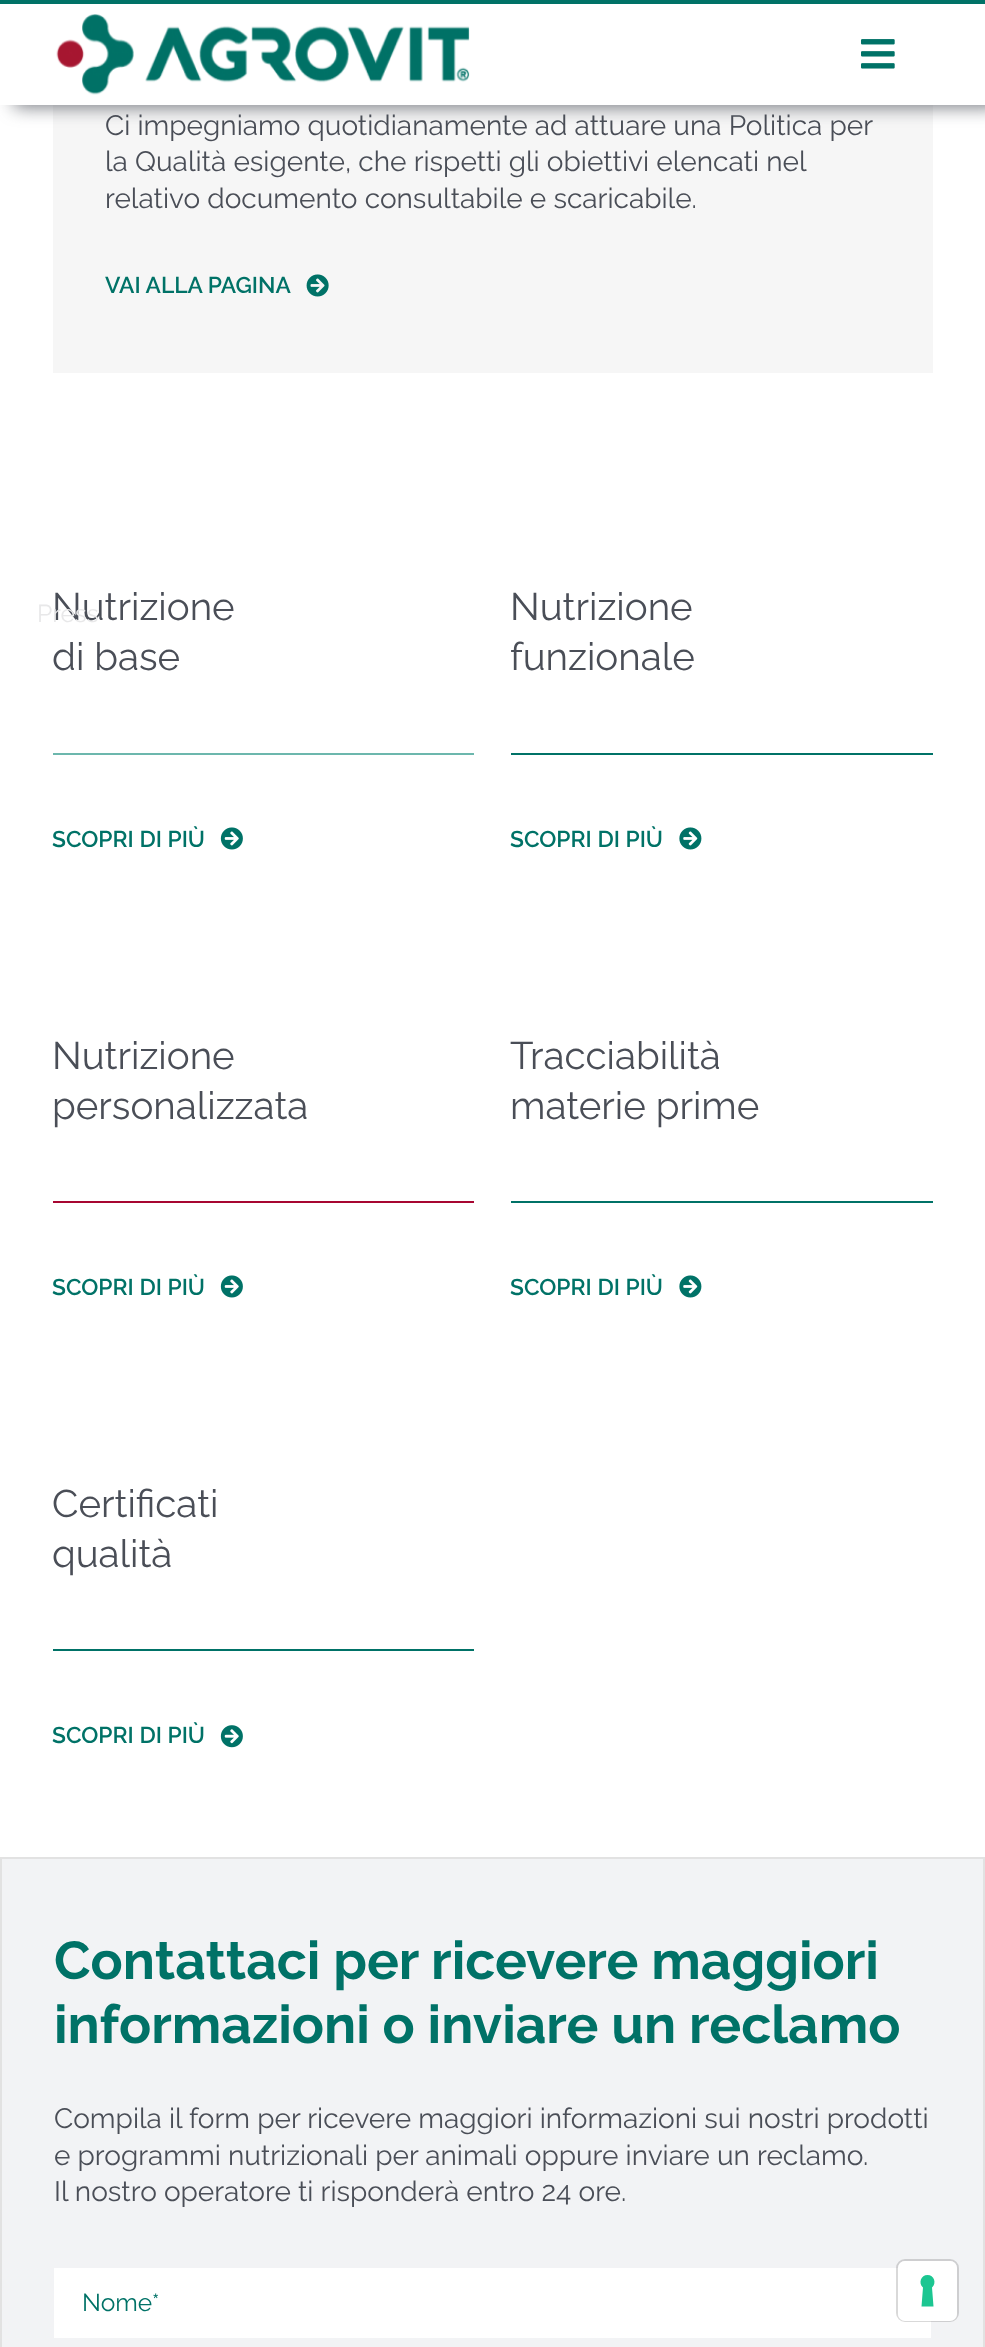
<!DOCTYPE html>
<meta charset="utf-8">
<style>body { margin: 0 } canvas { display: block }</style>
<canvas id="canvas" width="985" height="2347"></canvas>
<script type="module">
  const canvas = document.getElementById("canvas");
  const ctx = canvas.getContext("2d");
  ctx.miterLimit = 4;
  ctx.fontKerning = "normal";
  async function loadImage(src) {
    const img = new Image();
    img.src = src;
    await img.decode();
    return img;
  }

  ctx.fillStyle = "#ffffff";
  ctx.fillRect(0, 0, 985, 2347);
  ctx.fillStyle = "#f6f6f6";
  ctx.fillRect(53, 105, 880, 268);
  ctx.font = "28px Raleway";
  ctx.fillStyle = "#4a4e57";
  ctx.fillText("Ci impegniamo quotidianamente ad attuare una Politica per", 105, 135);
  ctx.fillText("la Qualità esigente, che rispetti gli obiettivi elencati nel", 105, 171);
  ctx.fillText("relativo documento consultabile e scaricabile.", 105, 208);
  ctx.font = "600 22.75px Raleway";
  ctx.fillStyle = "#007267";
  ctx.fillText("VAI ALLA PAGINA", 105, 293);
  ctx.drawImage(await loadImage("img1.png"), 306, 274, 23, 23);
  ctx.font = "38.5px Raleway";
  ctx.fillStyle = "#4a4e57";
  ctx.fillText("Nutrizione", 52, 620);
  ctx.fillText("di base", 52, 670);
  ctx.fillStyle = "#6cb7ad";
  ctx.fillRect(53, 753, 421, 2);
  ctx.font = "600 22.75px Raleway";
  ctx.fillStyle = "#007267";
  ctx.fillText("SCOPRI DI PIÙ", 52, 847);
  ctx.drawImage(await loadImage("img2.png"), 220, 827, 23, 23);
  ctx.font = "38.5px Raleway";
  ctx.fillStyle = "#4a4e57";
  ctx.fillText("Nutrizione", 510, 620);
  ctx.fillText("funzionale", 510, 670);
  ctx.fillStyle = "#007267";
  ctx.fillRect(511, 753, 422, 2);
  ctx.font = "600 22.75px Raleway";
  ctx.fillText("SCOPRI DI PIÙ", 510, 847);
  ctx.drawImage(await loadImage("img3.png"), 679, 827, 23, 23);
  ctx.font = "38.5px Raleway";
  ctx.fillStyle = "#4a4e57";
  ctx.fillText("Nutrizione", 52, 1069);
  ctx.fillText("personalizzata", 52, 1119);
  ctx.fillStyle = "#a70631";
  ctx.fillRect(53, 1201, 421, 2);
  ctx.font = "600 22.75px Raleway";
  ctx.fillStyle = "#007267";
  ctx.fillText("SCOPRI DI PIÙ", 52, 1295);
  ctx.drawImage(await loadImage("img2.png"), 220, 1275, 23, 23);
  ctx.font = "38.5px Raleway";
  ctx.fillStyle = "#4a4e57";
  ctx.fillText("Tracciabilità", 510, 1069);
  ctx.fillText("materie prime", 510, 1119);
  ctx.fillStyle = "#007267";
  ctx.fillRect(511, 1201, 422, 2);
  ctx.font = "600 22.75px Raleway";
  ctx.fillText("SCOPRI DI PIÙ", 510, 1295);
  ctx.drawImage(await loadImage("img3.png"), 679, 1275, 23, 23);
  ctx.font = "38.5px Raleway";
  ctx.fillStyle = "#4a4e57";
  ctx.fillText("Certificati", 52, 1517);
  ctx.fillText("qualità", 52, 1567);
  ctx.fillStyle = "#007267";
  ctx.fillRect(53, 1649, 421, 2);
  ctx.font = "600 22.75px Raleway";
  ctx.fillText("SCOPRI DI PIÙ", 52, 1743);
  ctx.drawImage(await loadImage("img4.png"), 220, 1725, 23, 23);
  ctx.fillStyle = "rgba(74, 78, 87, 0.75)";
  ctx.filter = "blur(9px)";
  ctx.beginPath();
  ctx.rect(14, 2, 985, 105);
  ctx.fill();
  ctx.filter = "none";
  ctx.fillStyle = "#ffffff";
  ctx.fillRect(0, 4, 985, 101);
  ctx.fillStyle = "#007267";
  ctx.fillRect(0, 0, 985, 4);
  ctx.drawImage(await loadImage("img5.png"), 56, 14, 414, 81);
  ctx.drawImage(await loadImage("img6.png"), 861, 39, 34, 30);
  ctx.font = "24.5px Raleway";
  ctx.fillStyle = "#e8e8e9";
  ctx.fillText("Press", 37, 622);
  ctx.fillStyle = "#f2f3f5";
  ctx.beginPath();
  ctx.rect(1, 1858, 983, 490);
  ctx.fill();
  ctx.strokeStyle = "#e2e2e2";
  ctx.lineWidth = 2;
  ctx.stroke();
  ctx.font = "bold 53.25px Raleway";
  ctx.fillStyle = "#007267";
  ctx.fillText("Contattaci per ricevere maggiori", 54, 1979);
  ctx.fillText("informazioni o inviare un reclamo", 54, 2043);
  ctx.font = "28px Raleway";
  ctx.fillStyle = "#4a4e57";
  ctx.fillText("Compila il form per ricevere maggiori informazioni sui nostri prodotti", 54, 2128);
  ctx.fillText("e programmi nutrizionali per animali oppure inviare un reclamo.", 54, 2165);
  ctx.fillText("Il nostro operatore ti risponderà entro 24 ore.", 54, 2201);
  ctx.fillStyle = "#ffffff";
  ctx.fillRect(54, 2268, 877, 70);
  ctx.font = "24.5px Raleway";
  ctx.fillStyle = "#007267";
  ctx.fillText("Nome*", 82, 2311);
  ctx.beginPath();
  ctx.roundRect(897, 2260, 61, 61, 8);
  ctx.strokeStyle = "rgba(0, 0, 0, 0.15)";
  ctx.stroke();
  ctx.fillStyle = "#ffffff";
  ctx.beginPath();
  ctx.roundRect(898, 2261, 59, 60, 7);
  ctx.fill();
  ctx.fillStyle = "#1cc691";
  ctx.beginPath();
  ctx.moveTo(927.5, 2275);
  ctx.bezierCurveTo(934, 2275, 937, 2283, 932, 2287.5);
  ctx.lineTo(933.5, 2306.5);
  ctx.lineTo(921.5, 2306.5);
  ctx.lineTo(923, 2287.5);
  ctx.bezierCurveTo(918, 2283, 921, 2275, 927.5, 2275);
  ctx.closePath();
  ctx.fill("evenodd");
</script>
